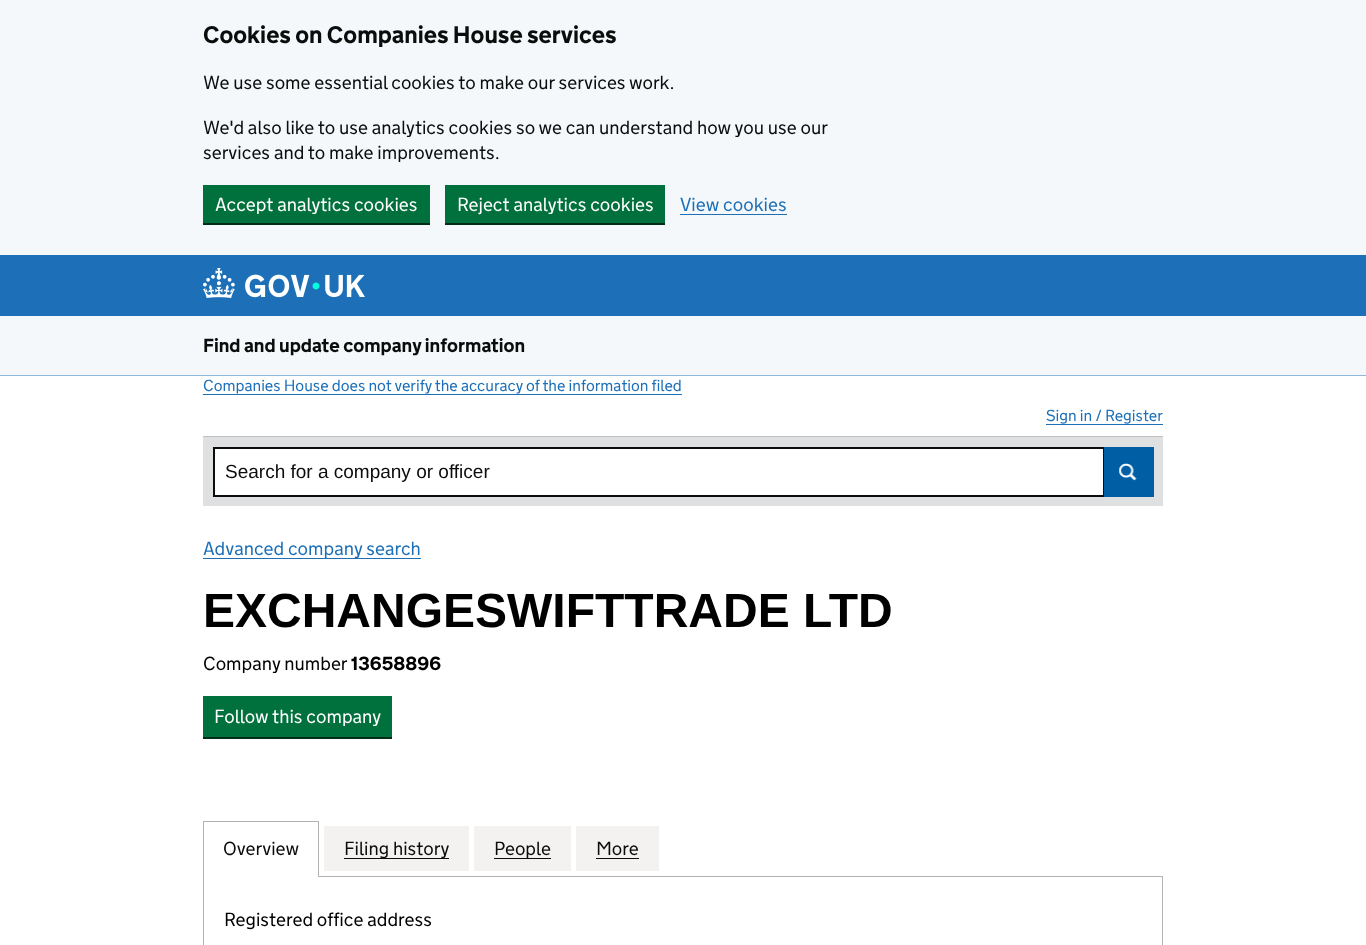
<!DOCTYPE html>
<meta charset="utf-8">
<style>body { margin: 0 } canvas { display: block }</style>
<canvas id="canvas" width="1366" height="945"></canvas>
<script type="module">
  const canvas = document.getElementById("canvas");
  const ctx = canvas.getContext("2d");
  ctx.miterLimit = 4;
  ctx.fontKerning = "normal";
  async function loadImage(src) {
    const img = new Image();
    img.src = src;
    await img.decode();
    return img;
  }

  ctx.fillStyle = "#ffffff";
  ctx.fillRect(0, 0, 1366, 945);
  ctx.fillStyle = "#f4f8fb";
  ctx.fillRect(0, 0, 1366, 255);
  ctx.font = "bold 24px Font";
  ctx.fillStyle = "#0b0c0c";
  ctx.fillText("Cookies on Companies House services", 203, 43);
  ctx.font = "300 19px Font";
  ctx.fillText("We use some essential cookies to make our services work.", 203, 89);
  ctx.fillText("We'd also like to use analytics cookies so we can understand how you use our", 203, 134);
  ctx.fillText("services and to make improvements.", 203, 159);
  ctx.fillStyle = "#002d18";
  ctx.fillRect(203, 223, 227, 2);
  ctx.fillStyle = "#00703c";
  ctx.fillRect(203, 185, 227, 38);
  ctx.fillStyle = "#ffffff";
  ctx.fillText("Accept analytics cookies", 215, 211);
  ctx.fillStyle = "#002d18";
  ctx.fillRect(445, 223, 220, 2);
  ctx.fillStyle = "#00703c";
  ctx.fillRect(445, 185, 220, 38);
  ctx.fillStyle = "#ffffff";
  ctx.fillText("Reject analytics cookies", 457, 211);
  ctx.fillStyle = "#1d70b8";
  ctx.fillText("View cookies", 680, 211);
  ctx.fillRect(680, 214, 107, 1);
  ctx.fillRect(0, 255, 1366, 61);
  ctx.drawImage(await loadImage("img1.png"), 203, 268, 162, 30);
  ctx.fillStyle = "#f4f8fb";
  ctx.fillRect(0, 316, 1366, 59);
  ctx.fillStyle = "#8eb8dc";
  ctx.fillRect(0, 375, 1366, 1);
  ctx.font = "bold 19px Font";
  ctx.fillStyle = "#0b0c0c";
  ctx.fillText("Find and update company information", 203, 352);
  ctx.font = "300 16px Font";
  ctx.fillStyle = "#1d70b8";
  ctx.fillText("Companies House does not verify the accuracy of the information filed", 203, 391);
  ctx.fillRect(203, 394, 479, 1);
  ctx.fillStyle = "#bfc1c3";
  ctx.fillRect(203, 436, 960, 1);
  ctx.fillStyle = "#1d70b8";
  ctx.fillText("Sign in / Register", 1046, 421);
  ctx.fillRect(1046, 424, 117, 1);
  ctx.fillStyle = "#dee0e2";
  ctx.fillRect(203, 437, 960, 69);
  ctx.fillStyle = "#ffffff";
  ctx.beginPath();
  ctx.rect(214, 448, 890, 48);
  ctx.fill();
  ctx.strokeStyle = "#0b0c0c";
  ctx.lineWidth = 2;
  ctx.stroke();
  ctx.font = "19px Liberation Sans";
  ctx.fillStyle = "#0b0c0c";
  ctx.fillText("Search for a company or officer", 225, 478);
  ctx.fillStyle = "#005ea5";
  ctx.fillRect(1104, 447, 50, 50);
  ctx.drawImage(await loadImage("img2.png"), 1119, 463, 18, 18);
  ctx.fillStyle = "#1d70b8";
  ctx.fillRect(203, 558, 218, 1);
  ctx.font = "300 19px Font";
  ctx.fillText("Advanced company search", 203, 555);
  ctx.font = "bold 48px Liberation Sans";
  ctx.fillStyle = "#000000";
  ctx.fillText("EXCHANGESWIFTTRADE LTD", 203, 627);
  ctx.font = "300 19px Font";
  ctx.fillText("Company number", 203, 670);
  ctx.font = "bold 19px Font";
  ctx.fillText("13658896", 351, 670);
  ctx.fillStyle = "#002d18";
  ctx.fillRect(203, 737, 189, 2);
  ctx.fillStyle = "#00703c";
  ctx.fillRect(203, 696, 189, 41);
  ctx.font = "300 19px Font";
  ctx.fillStyle = "#ffffff";
  ctx.fillText("Follow this company", 214, 723);
  ctx.fillStyle = "#b1b4b6";
  ctx.fillRect(319, 876, 844, 1);
  ctx.fillRect(203, 821, 116, 1);
  ctx.fillRect(318, 821, 1, 56);
  ctx.fillRect(203, 821, 1, 56);
  ctx.fillStyle = "#0b0c0c";
  ctx.fillText("Overview", 223, 855);
  ctx.fillStyle = "#f3f2f1";
  ctx.fillRect(324, 826, 145, 45);
  ctx.fillStyle = "#0b0c0c";
  ctx.fillRect(344, 858, 105, 1);
  ctx.fillText("Filing history", 344, 855);
  ctx.fillStyle = "#f3f2f1";
  ctx.fillRect(474, 826, 97, 45);
  ctx.fillStyle = "#0b0c0c";
  ctx.fillText("People", 494, 855);
  ctx.fillRect(494, 858, 57, 1);
  ctx.fillStyle = "#f3f2f1";
  ctx.fillRect(576, 826, 83, 45);
  ctx.fillStyle = "#0b0c0c";
  ctx.fillText("More", 596, 855);
  ctx.fillRect(596, 858, 43, 1);
  ctx.fillStyle = "#b1b4b6";
  ctx.fillRect(1162, 877, 1, 68);
  ctx.fillRect(203, 877, 1, 68);
  ctx.fillStyle = "#000000";
  ctx.fillText("Registered office address", 224, 926);
</script>
